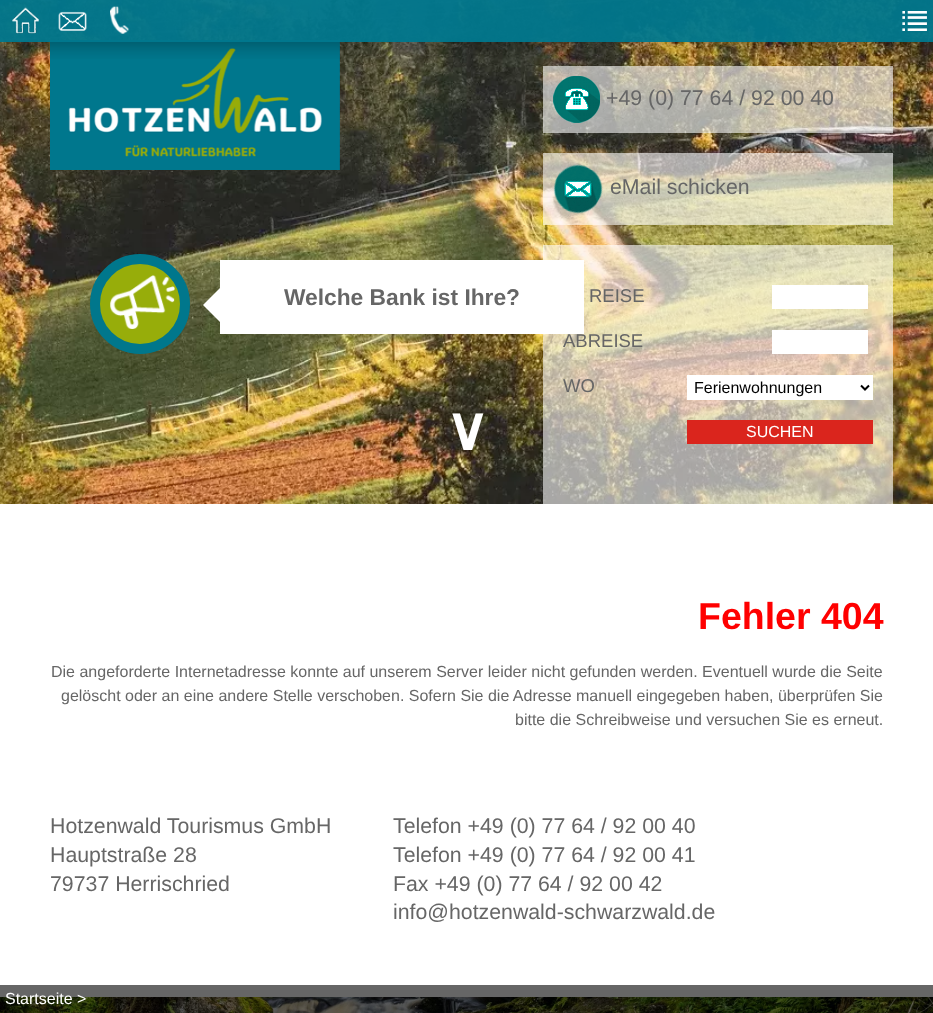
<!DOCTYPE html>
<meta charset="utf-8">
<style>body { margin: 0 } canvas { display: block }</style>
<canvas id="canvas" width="933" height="1013"></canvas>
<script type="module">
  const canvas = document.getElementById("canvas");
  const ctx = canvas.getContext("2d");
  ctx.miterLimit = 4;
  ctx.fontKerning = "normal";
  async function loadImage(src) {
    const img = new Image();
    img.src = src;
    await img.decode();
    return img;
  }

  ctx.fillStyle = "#ffffff";
  ctx.fillRect(0, 0, 933, 1013);
  ctx.fillStyle = "#666666";
  ctx.fillRect(0, 985, 933, 12);
  ctx.drawImage(await loadImage("img6.png"), 0, 0, 933, 504);
  ctx.drawImage(await loadImage("img5.png"), 50, 40, 290, 130);
  ctx.fillStyle = "rgba(255, 255, 255, 0.6)";
  ctx.fillRect(543, 66, 350, 67);
  ctx.save();
  ctx.beginPath();
  ctx.rect(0, 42, 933, 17);
  ctx.clip();
  ctx.fillStyle = "rgba(0, 0, 0, 0.3)";
  ctx.filter = "blur(9px)";
  ctx.beginPath();
  ctx.rect(3, 9, 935, 36);
  ctx.fill();
  ctx.filter = "none";
  ctx.restore();
  ctx.fillStyle = "rgba(0, 119, 141, 0.95)";
  ctx.fillRect(0, 0, 933, 42);
  ctx.drawImage(await loadImage("img1.png"), 12, 7, 27, 27);
  ctx.drawImage(await loadImage("img2.png"), 58, 11, 29, 20);
  ctx.drawImage(await loadImage("img3.png"), 110, 6, 19, 28);
  ctx.drawImage(await loadImage("img4.png"), 902, 11, 25, 20);
  ctx.fillStyle = "#97ad0a";
  ctx.beginPath();
  ctx.arc(140, 304, 45, 0, Math.PI * 2);
  ctx.fill();
  ctx.strokeStyle = "#00778c";
  ctx.lineWidth = 10;
  ctx.stroke();
  ctx.drawImage(await loadImage("img7.png"), 110, 275, 65, 54);
  ctx.fillStyle = "rgba(255, 255, 255, 0.6)";
  ctx.fillRect(543, 245, 350, 259);
  ctx.font = "18.5px Liberation Sans";
  ctx.fillStyle = "#666666";
  ctx.fillText("ABREISE", 563, 347);
  ctx.fillStyle = "#ffffff";
  ctx.fillRect(220, 260, 364, 74);
  ctx.beginPath();
  ctx.moveTo(220, 322);
  ctx.lineTo(203, 305);
  ctx.lineTo(220, 305);
  ctx.closePath();
  ctx.moveTo(203, 305);
  ctx.lineTo(220, 288);
  ctx.lineTo(220, 305);
  ctx.closePath();
  ctx.fill();
  ctx.font = "bold 22.75px Liberation Sans";
  ctx.fillStyle = "#666666";
  ctx.fillText("Welche Bank ist Ihre?", 284, 305);
  ctx.drawImage(await loadImage("img8.png"), 553, 76, 47, 47);
  ctx.font = "21.3px Liberation Sans";
  ctx.fillText("+49 (0) 77 64 / 92 00 40", 606, 105);
  ctx.fillStyle = "rgba(255, 255, 255, 0.6)";
  ctx.fillRect(543, 153, 350, 72);
  ctx.drawImage(await loadImage("img9.png"), 553, 164, 50, 50);
  ctx.fillStyle = "#666666";
  ctx.fillText("eMail schicken", 610, 194);
  ctx.font = "18.5px Liberation Sans";
  ctx.fillText("REISE", 589, 302);
  ctx.fillStyle = "#ffffff";
  ctx.fillRect(772, 285, 96, 24);
  ctx.fillRect(772, 330, 96, 24);
  ctx.fillStyle = "#666666";
  ctx.fillText("WO", 563, 392);
  ctx.fillStyle = "#ffffff";
  ctx.fillRect(687, 375, 186, 25);
  ctx.beginPath();
  ctx.moveTo(861, 385.5);
  ctx.lineTo(865, 389.5);
  ctx.lineTo(869, 385.5);
  ctx.strokeStyle = "#000000";
  ctx.lineWidth = 2;
  ctx.stroke();
  ctx.font = "16px Liberation Sans";
  ctx.fillStyle = "#000000";
  ctx.fillText("Ferienwohnungen", 694, 393);
  ctx.fillStyle = "#da251d";
  ctx.fillRect(687, 420, 186, 24);
  ctx.fillStyle = "#ffffff";
  ctx.fillText("SUCHEN", 746, 437);
  ctx.font = "bold 60px DejaVu Sans";
  ctx.fillText("∨", 445, 450);
  ctx.font = "bold 37.5px Liberation Sans";
  ctx.fillStyle = "#ff0000";
  ctx.fillText("Fehler 404", 698, 629);
  ctx.font = "16px Liberation Sans";
  ctx.fillStyle = "#666666";
  ctx.fillText("Die angeforderte Internetadresse konnte auf unserem Server leider nicht gefunden werden. Eventuell wurde die Seite", 51, 677);
  ctx.fillText("gelöscht oder an eine andere Stelle verschoben. Sofern Sie die Adresse manuell eingegeben haben, überprüfen Sie", 61, 701);
  ctx.fillText("bitte die Schreibweise und versuchen Sie es erneut.", 515, 725);
  ctx.font = "21.3px Liberation Sans";
  ctx.fillText("Hotzenwald Tourismus GmbH", 50, 833);
  ctx.fillText("Hauptstraße 28", 50, 862);
  ctx.fillText("79737 Herrischried", 50, 891);
  ctx.fillText("Telefon +49 (0) 77 64 / 92 00 40", 393, 833);
  ctx.fillText("Telefon +49 (0) 77 64 / 92 00 41", 393, 862);
  ctx.fillText("Fax +49 (0) 77 64 / 92 00 42", 393, 891);
  ctx.fillText("info@hotzenwald-schwarzwald.de", 393, 919);
  ctx.drawImage(await loadImage("img10.png"), 0, 997, 933, 16);
  ctx.font = "16px Liberation Sans";
  ctx.fillStyle = "#ffffff";
  ctx.fillText("Startseite >", 5, 1004);
</script>
